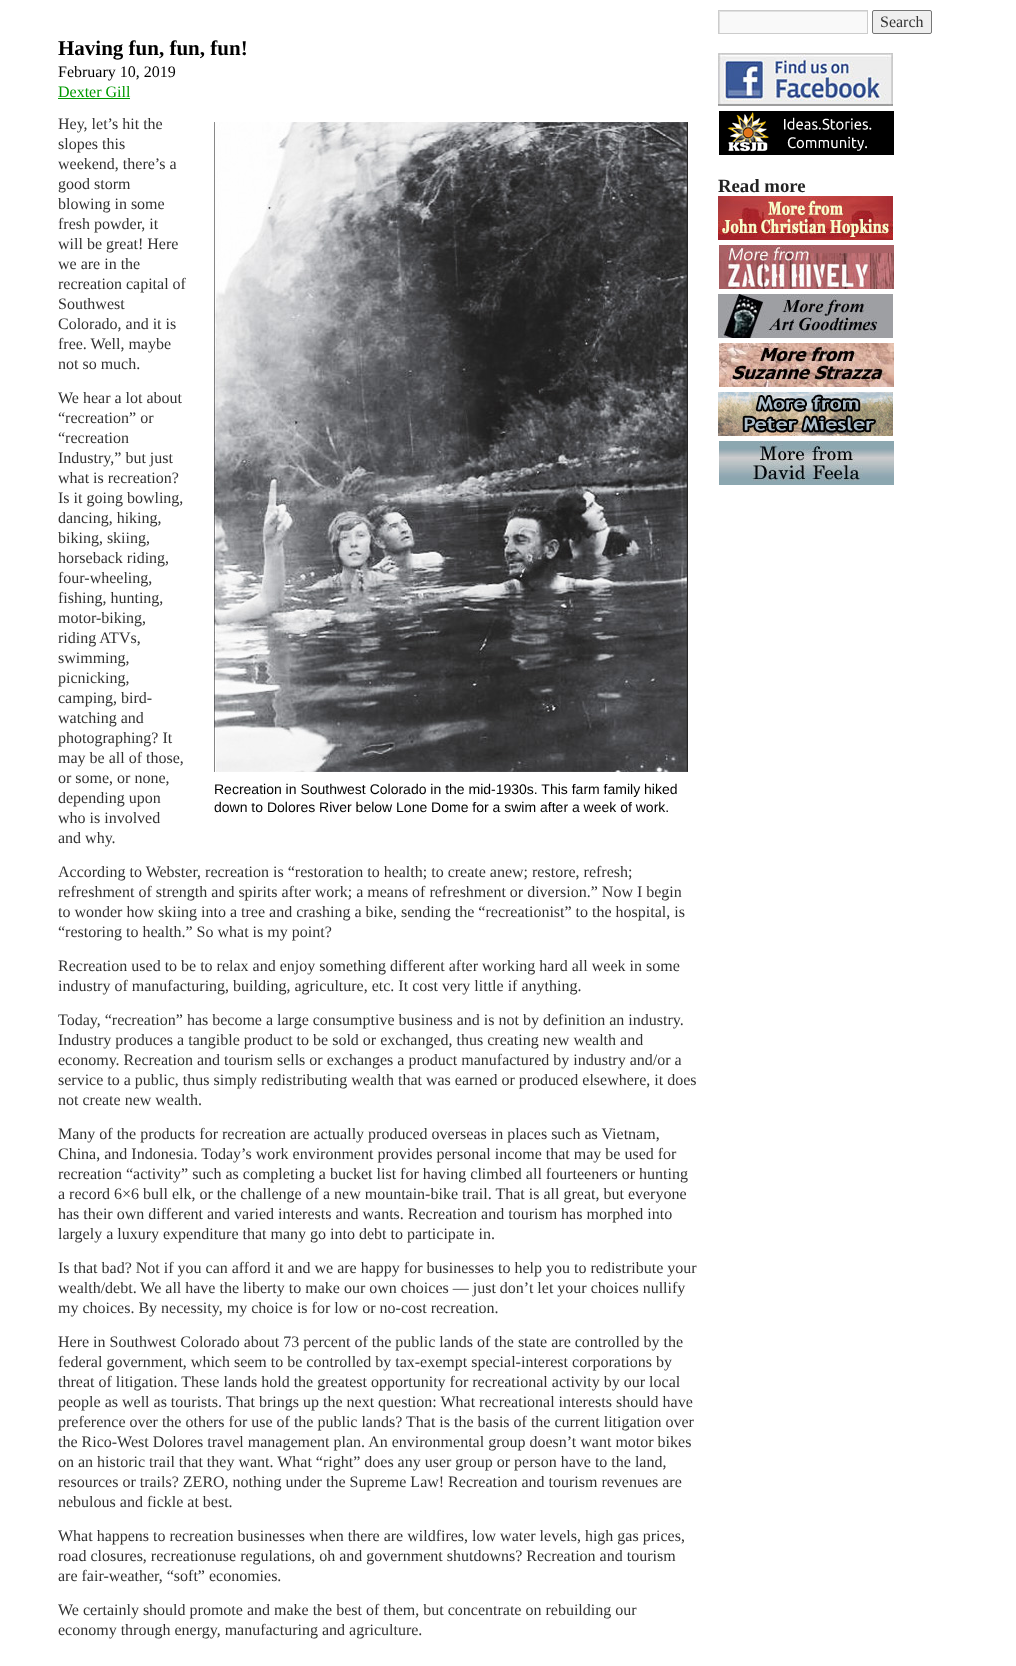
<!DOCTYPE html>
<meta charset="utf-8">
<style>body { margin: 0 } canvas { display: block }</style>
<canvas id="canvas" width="1016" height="1666"></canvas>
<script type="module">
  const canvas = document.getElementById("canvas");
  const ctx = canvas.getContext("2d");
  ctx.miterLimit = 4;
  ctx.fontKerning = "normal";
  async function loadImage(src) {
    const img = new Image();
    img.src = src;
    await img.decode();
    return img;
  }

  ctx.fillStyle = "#ffffff";
  ctx.fillRect(0, 0, 1016, 1666);
  ctx.font = "bold 21px Liberation Serif";
  ctx.fillStyle = "#000000";
  ctx.fillText("Having fun, fun, fun!", 58, 55);
  ctx.font = "16px Liberation Serif";
  ctx.fillText("February 10, 2019", 58, 77);
  ctx.fillStyle = "#009900";
  ctx.fillText("Dexter Gill", 58, 97);
  ctx.fillRect(58, 98, 72, 1);
  ctx.fillStyle = "#333333";
  ctx.fillText("Hey, let’s hit the", 58, 129);
  ctx.fillText("slopes this", 58, 149);
  ctx.fillText("weekend, there’s a", 58, 169);
  ctx.fillText("good storm", 58, 189);
  ctx.fillText("blowing in some", 58, 209);
  ctx.fillText("fresh powder, it", 58, 229);
  ctx.fillText("will be great! Here", 58, 249);
  ctx.fillText("we are in the", 58, 269);
  ctx.fillText("recreation capital of", 58, 289);
  ctx.fillText("Southwest", 58, 309);
  ctx.fillText("Colorado, and it is", 58, 329);
  ctx.fillText("free. Well, maybe", 58, 349);
  ctx.fillText("not so much.", 58, 369);
  ctx.fillText("We hear a lot about", 58, 403);
  ctx.fillText("“recreation” or", 58, 423);
  ctx.fillText("“recreation", 58, 443);
  ctx.fillText("Industry,” but just", 58, 463);
  ctx.fillText("what is recreation?", 58, 483);
  ctx.fillText("Is it going bowling,", 58, 503);
  ctx.fillText("dancing, hiking,", 58, 523);
  ctx.fillText("biking, skiing,", 58, 543);
  ctx.fillText("horseback riding,", 58, 563);
  ctx.fillText("four-wheeling,", 58, 583);
  ctx.fillText("fishing, hunting,", 58, 603);
  ctx.fillText("motor-biking,", 58, 623);
  ctx.fillText("riding ATVs,", 58, 643);
  ctx.fillText("swimming,", 58, 663);
  ctx.fillText("picnicking,", 58, 683);
  ctx.fillText("camping, bird-", 58, 703);
  ctx.fillText("watching and", 58, 723);
  ctx.fillText("photographing? It", 58, 743);
  ctx.fillText("may be all of those,", 58, 763);
  ctx.fillText("or some, or none,", 58, 783);
  ctx.fillText("depending upon", 58, 803);
  ctx.fillText("who is involved", 58, 823);
  ctx.fillText("and why.", 58, 843);
  ctx.drawImage(await loadImage("img1.png"), 214, 122, 474, 650);
  ctx.font = "14px Liberation Sans";
  ctx.fillStyle = "#000000";
  ctx.fillText("Recreation in Southwest Colorado in the mid-1930s. This farm family hiked", 214, 794);
  ctx.fillText("down to Dolores River below Lone Dome for a swim after a week of work.", 214, 812);
  ctx.font = "16px Liberation Serif";
  ctx.fillStyle = "#333333";
  ctx.fillText("According to Webster, recreation is “restoration to health; to create anew; restore, refresh;", 58, 877);
  ctx.fillText("refreshment of strength and spirits after work; a means of refreshment or diversion.” Now I begin", 58, 897);
  ctx.fillText("to wonder how skiing into a tree and crashing a bike, sending the “recreationist” to the hospital, is", 58, 917);
  ctx.fillText("“restoring to health.” So what is my point?", 58, 937);
  ctx.fillText("Recreation used to be to relax and enjoy something different after working hard all week in some", 58, 971);
  ctx.fillText("industry of manufacturing, building, agriculture, etc. It cost very little if anything.", 58, 991);
  ctx.fillText("Today, “recreation” has become a large consumptive business and is not by definition an industry.", 58, 1025);
  ctx.fillText("Industry produces a tangible product to be sold or exchanged, thus creating new wealth and", 58, 1045);
  ctx.fillText("economy. Recreation and tourism sells or exchanges a product manufactured by industry and/or a", 58, 1065);
  ctx.fillText("service to a public, thus simply redistributing wealth that was earned or produced elsewhere, it does", 58, 1085);
  ctx.fillText("not create new wealth.", 58, 1105);
  ctx.fillText("Many of the products for recreation are actually produced overseas in places such as Vietnam,", 58, 1139);
  ctx.fillText("China, and Indonesia. Today’s work environment provides personal income that may be used for", 58, 1159);
  ctx.fillText("recreation “activity” such as completing a bucket list for having climbed all fourteeners or hunting", 58, 1179);
  ctx.fillText("a record 6×6 bull elk, or the challenge of a new mountain-bike trail. That is all great, but everyone", 58, 1199);
  ctx.fillText("has their own different and varied interests and wants. Recreation and tourism has morphed into", 58, 1219);
  ctx.fillText("largely a luxury expenditure that many go into debt to participate in.", 58, 1239);
  ctx.fillText("Is that bad? Not if you can afford it and we are happy for businesses to help you to redistribute your", 58, 1273);
  ctx.fillText("wealth/debt. We all have the liberty to make our own choices — just don’t let your choices nullify", 58, 1293);
  ctx.fillText("my choices. By necessity, my choice is for low or no-cost recreation.", 58, 1313);
  ctx.fillText("Here in Southwest Colorado about 73 percent of the public lands of the state are controlled by the", 58, 1347);
  ctx.fillText("federal government, which seem to be controlled by tax-exempt special-interest corporations by", 58, 1367);
  ctx.fillText("threat of litigation. These lands hold the greatest opportunity for recreational activity by our local", 58, 1387);
  ctx.fillText("people as well as tourists. That brings up the next question: What recreational interests should have", 58, 1407);
  ctx.fillText("preference over the others for use of the public lands? That is the basis of the current litigation over", 58, 1427);
  ctx.fillText("the Rico-West Dolores travel management plan. An environmental group doesn’t want motor bikes", 58, 1447);
  ctx.fillText("on an historic trail that they want. What “right” does any user group or person have to the land,", 58, 1467);
  ctx.fillText("resources or trails? ZERO, nothing under the Supreme Law! Recreation and tourism revenues are", 58, 1487);
  ctx.fillText("nebulous and fickle at best.", 58, 1507);
  ctx.fillText("What happens to recreation businesses when there are wildfires, low water levels, high gas prices,", 58, 1541);
  ctx.fillText("road closures, recreationuse regulations, oh and government shutdowns? Recreation and tourism", 58, 1561);
  ctx.fillText("are fair-weather, “soft” economies.", 58, 1581);
  ctx.fillText("We certainly should promote and make the best of them, but concentrate on rebuilding our", 58, 1615);
  ctx.fillText("economy through energy, manufacturing and agriculture.", 58, 1635);
  ctx.fillStyle = "#f9f9f9";
  ctx.fillRect(720, 12, 147, 21);
  ctx.save();
  ctx.beginPath();
  ctx.rect(719, 11, 148, 22);
  ctx.clip();
  ctx.fillStyle = "#e0e0e0";
  ctx.beginPath();
  ctx.moveTo(620, -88);
  ctx.lineTo(966, -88);
  ctx.lineTo(966, 132);
  ctx.lineTo(620, 132);
  ctx.closePath();
  ctx.moveTo(720, 12);
  ctx.lineTo(868, 12);
  ctx.lineTo(868, 34);
  ctx.lineTo(720, 34);
  ctx.closePath();
  ctx.fill("evenodd");
  ctx.restore();
  ctx.strokeStyle = "#cccccc";
  ctx.strokeRect(718.5, 10.5, 149, 23);
  ctx.fillStyle = "#efefef";
  ctx.beginPath();
  ctx.roundRect(872.5, 10.5, 59, 23, 1.5);
  ctx.fill();
  ctx.strokeStyle = "#767676";
  ctx.stroke();
  ctx.fillStyle = "#333333";
  ctx.fillText("Search", 880, 27);
  ctx.drawImage(await loadImage("img2.png"), 718, 53, 175, 53);
  ctx.drawImage(await loadImage("img3.png"), 719, 111, 175, 44);
  ctx.font = "bold 18.75px Liberation Serif";
  ctx.fillStyle = "#222222";
  ctx.fillText("Read more", 718, 192);
  ctx.drawImage(await loadImage("img4.png"), 718, 196, 175, 44);
  ctx.drawImage(await loadImage("img5.png"), 719, 245, 175, 44);
  ctx.drawImage(await loadImage("img6.png"), 718, 294, 175, 44);
  ctx.drawImage(await loadImage("img7.png"), 719, 343, 175, 44);
  ctx.drawImage(await loadImage("img8.png"), 718, 392, 175, 44);
  ctx.drawImage(await loadImage("img9.png"), 719, 441, 175, 44);
</script>
